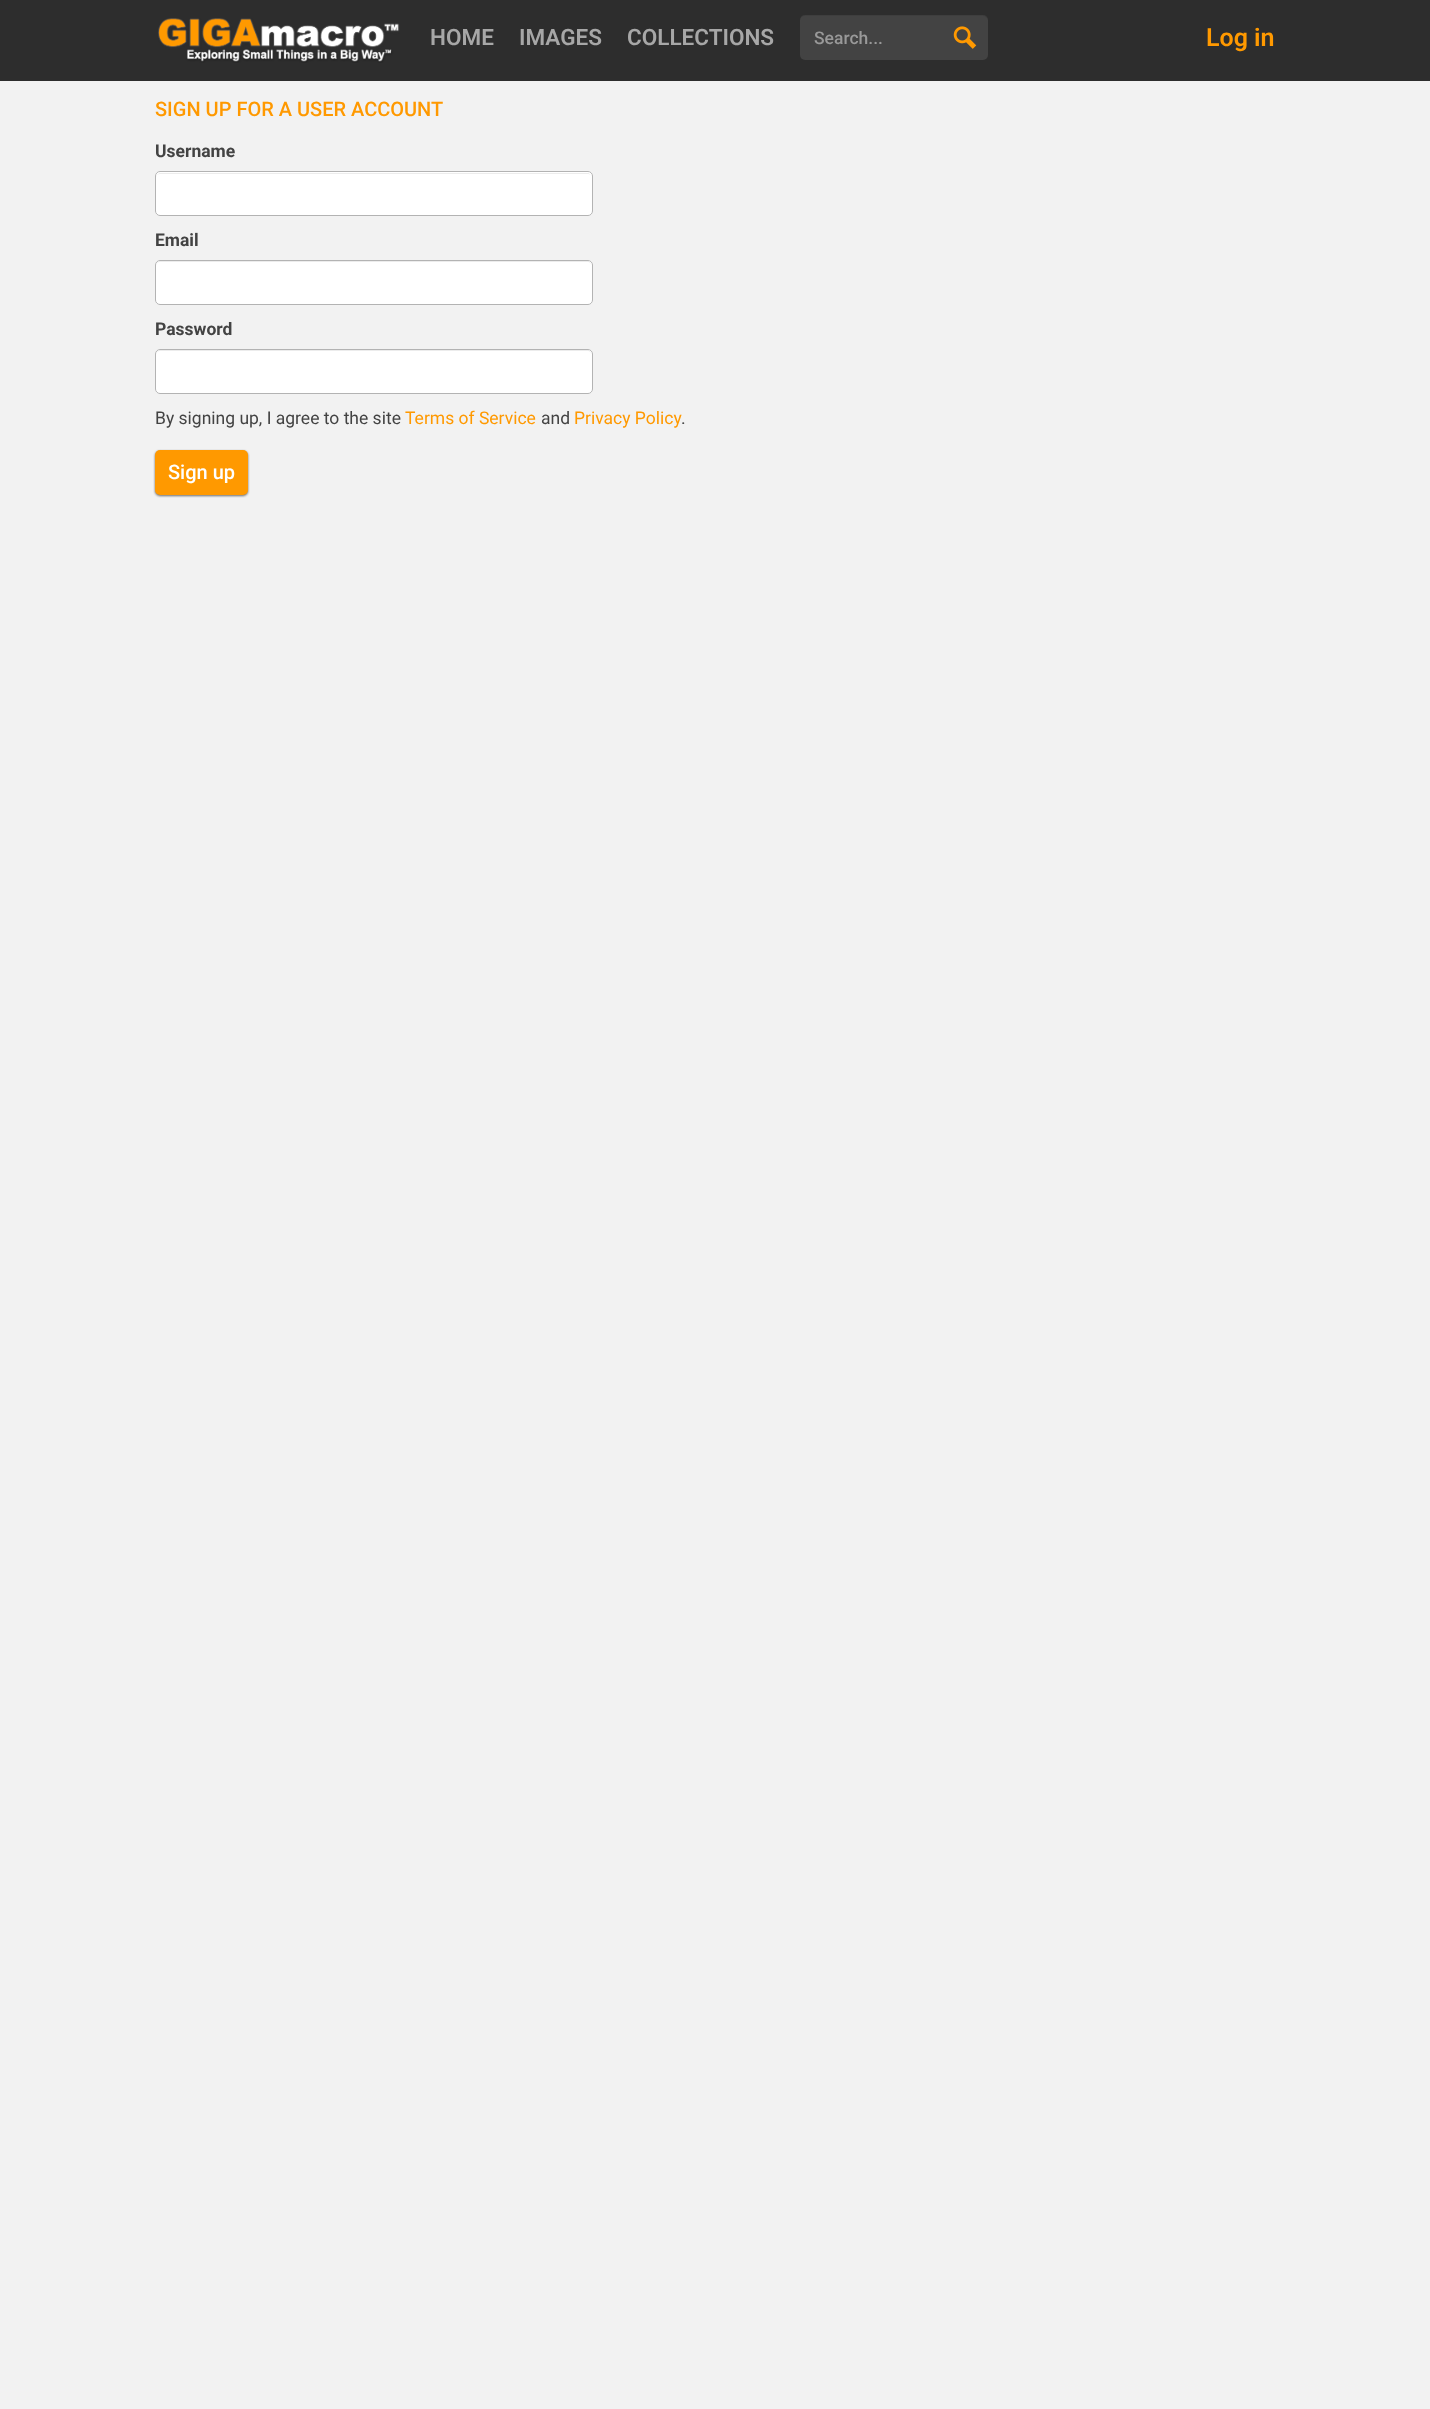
<!DOCTYPE html>
<meta charset="utf-8">
<style>body { margin: 0 } canvas { display: block }</style>
<canvas id="canvas" width="1430" height="2409"></canvas>
<script type="module">
  const canvas = document.getElementById("canvas");
  const ctx = canvas.getContext("2d");
  ctx.miterLimit = 4;
  ctx.fontKerning = "normal";
  async function loadImage(src) {
    const img = new Image();
    img.src = src;
    await img.decode();
    return img;
  }

  ctx.fillStyle = "#f2f2f2";
  ctx.fillRect(0, 0, 1430, 2409);
  ctx.fillStyle = "#2d2d2d";
  ctx.fillRect(0, 0, 1430, 81);
  ctx.drawImage(await loadImage("img1.png"), 158, 18, 242, 45);
  ctx.font = "600 22.5px Roboto";
  ctx.fillStyle = "#a7a7a7";
  ctx.fillText("HOME", 430, 45);
  ctx.fillText("IMAGES", 519, 45);
  ctx.fillText("COLLECTIONS", 627, 45);
  ctx.fillStyle = "#434343";
  ctx.beginPath();
  ctx.roundRect(800, 15, 188, 45, 5);
  ctx.fill();
  ctx.fillStyle = "rgba(0, 0, 0, 0.07)";
  ctx.beginPath();
  ctx.moveTo(805, 16);
  ctx.lineTo(982, 16);
  ctx.bezierCurveTo(985, 16, 988, 18, 988, 21);
  ctx.bezierCurveTo(988, 18, 987, 16, 984, 15);
  ctx.lineTo(804, 15);
  ctx.bezierCurveTo(801, 16, 800, 18, 800, 21);
  ctx.bezierCurveTo(800, 18, 802, 16, 805, 16);
  ctx.closePath();
  ctx.fill();
  ctx.font = "500 17.5px Roboto";
  ctx.fillStyle = "#999999";
  ctx.fillText("Search...", 814, 44);
  ctx.drawImage(await loadImage("img2.png"), 953, 26, 24, 23);
  ctx.font = "600 25px Roboto";
  ctx.fillStyle = "#ff9900";
  ctx.fillText("Log in", 1206, 46);
  ctx.font = "500 20px Roboto";
  ctx.fillText("SIGN UP FOR A USER ACCOUNT", 155, 116);
  ctx.font = "bold 17.5px Roboto";
  ctx.fillStyle = "#434343";
  ctx.fillText("Username", 155, 157);
  ctx.fillStyle = "#ffffff";
  ctx.beginPath();
  ctx.roundRect(155, 171, 438, 45, 5);
  ctx.fill();
  ctx.fillStyle = "#ececec";
  ctx.beginPath();
  ctx.moveTo(160, 174);
  ctx.lineTo(588, 174);
  ctx.bezierCurveTo(590, 174, 591, 175, 591, 178);
  ctx.bezierCurveTo(591, 175, 590, 173, 587, 173);
  ctx.lineTo(160, 173);
  ctx.lineTo(158, 174);
  ctx.lineTo(157, 175);
  ctx.lineTo(156, 178);
  ctx.bezierCurveTo(156, 175, 158, 174, 160, 174);
  ctx.closePath();
  ctx.fill();
  ctx.beginPath();
  ctx.roundRect(155.5, 171.5, 437, 44, 4.5);
  ctx.strokeStyle = "#b3b3b3";
  ctx.stroke();
  ctx.fillStyle = "#434343";
  ctx.fillText("Email", 155, 246);
  ctx.fillStyle = "#ffffff";
  ctx.beginPath();
  ctx.roundRect(155, 260, 438, 45, 5);
  ctx.fill();
  ctx.fillStyle = "#ececec";
  ctx.beginPath();
  ctx.moveTo(160, 262);
  ctx.lineTo(588, 262);
  ctx.bezierCurveTo(590, 262, 591, 264, 591, 266);
  ctx.bezierCurveTo(591, 263, 590, 261, 587, 261);
  ctx.lineTo(160, 261);
  ctx.lineTo(158, 262);
  ctx.lineTo(157, 263);
  ctx.lineTo(156, 266);
  ctx.bezierCurveTo(156, 264, 158, 262, 160, 262);
  ctx.closePath();
  ctx.fill();
  ctx.beginPath();
  ctx.roundRect(155.5, 260.5, 437, 44, 4.5);
  ctx.stroke();
  ctx.fillStyle = "#434343";
  ctx.fillText("Password", 155, 335);
  ctx.fillStyle = "#ffffff";
  ctx.beginPath();
  ctx.roundRect(155, 349, 438, 45, 5);
  ctx.fill();
  ctx.fillStyle = "#ececec";
  ctx.beginPath();
  ctx.moveTo(160, 351);
  ctx.lineTo(588, 351);
  ctx.bezierCurveTo(590, 351, 591, 353, 591, 355);
  ctx.bezierCurveTo(591, 352, 590, 350, 587, 350);
  ctx.lineTo(160, 350);
  ctx.lineTo(158, 351);
  ctx.lineTo(157, 352);
  ctx.lineTo(156, 355);
  ctx.bezierCurveTo(156, 353, 158, 351, 160, 351);
  ctx.closePath();
  ctx.fill();
  ctx.beginPath();
  ctx.roundRect(155.5, 349.5, 437, 44, 4.5);
  ctx.stroke();
  ctx.font = "17.5px Roboto";
  ctx.fillStyle = "#434343";
  ctx.fillText("By signing up, I agree to the site", 155, 424);
  ctx.fillStyle = "#ff9900";
  ctx.fillText("Terms of Service", 405, 424);
  ctx.fillStyle = "#434343";
  ctx.fillText("and", 541, 424);
  ctx.fillStyle = "#ff9900";
  ctx.fillText("Privacy Policy", 574, 424);
  ctx.fillStyle = "#434343";
  ctx.fillText(".", 681, 424);
  ctx.fillStyle = "#696969";
  ctx.filter = "blur(1px)";
  ctx.beginPath();
  ctx.roundRect(155, 451, 93, 45, 5);
  ctx.fill();
  ctx.filter = "none";
  ctx.fillStyle = "#ff9900";
  ctx.beginPath();
  ctx.roundRect(155, 450, 93, 45, 5);
  ctx.fill();
  ctx.font = "500 20px Roboto";
  ctx.fillStyle = "#ffffff";
  ctx.fillText("Sign up", 168, 479);
</script>
